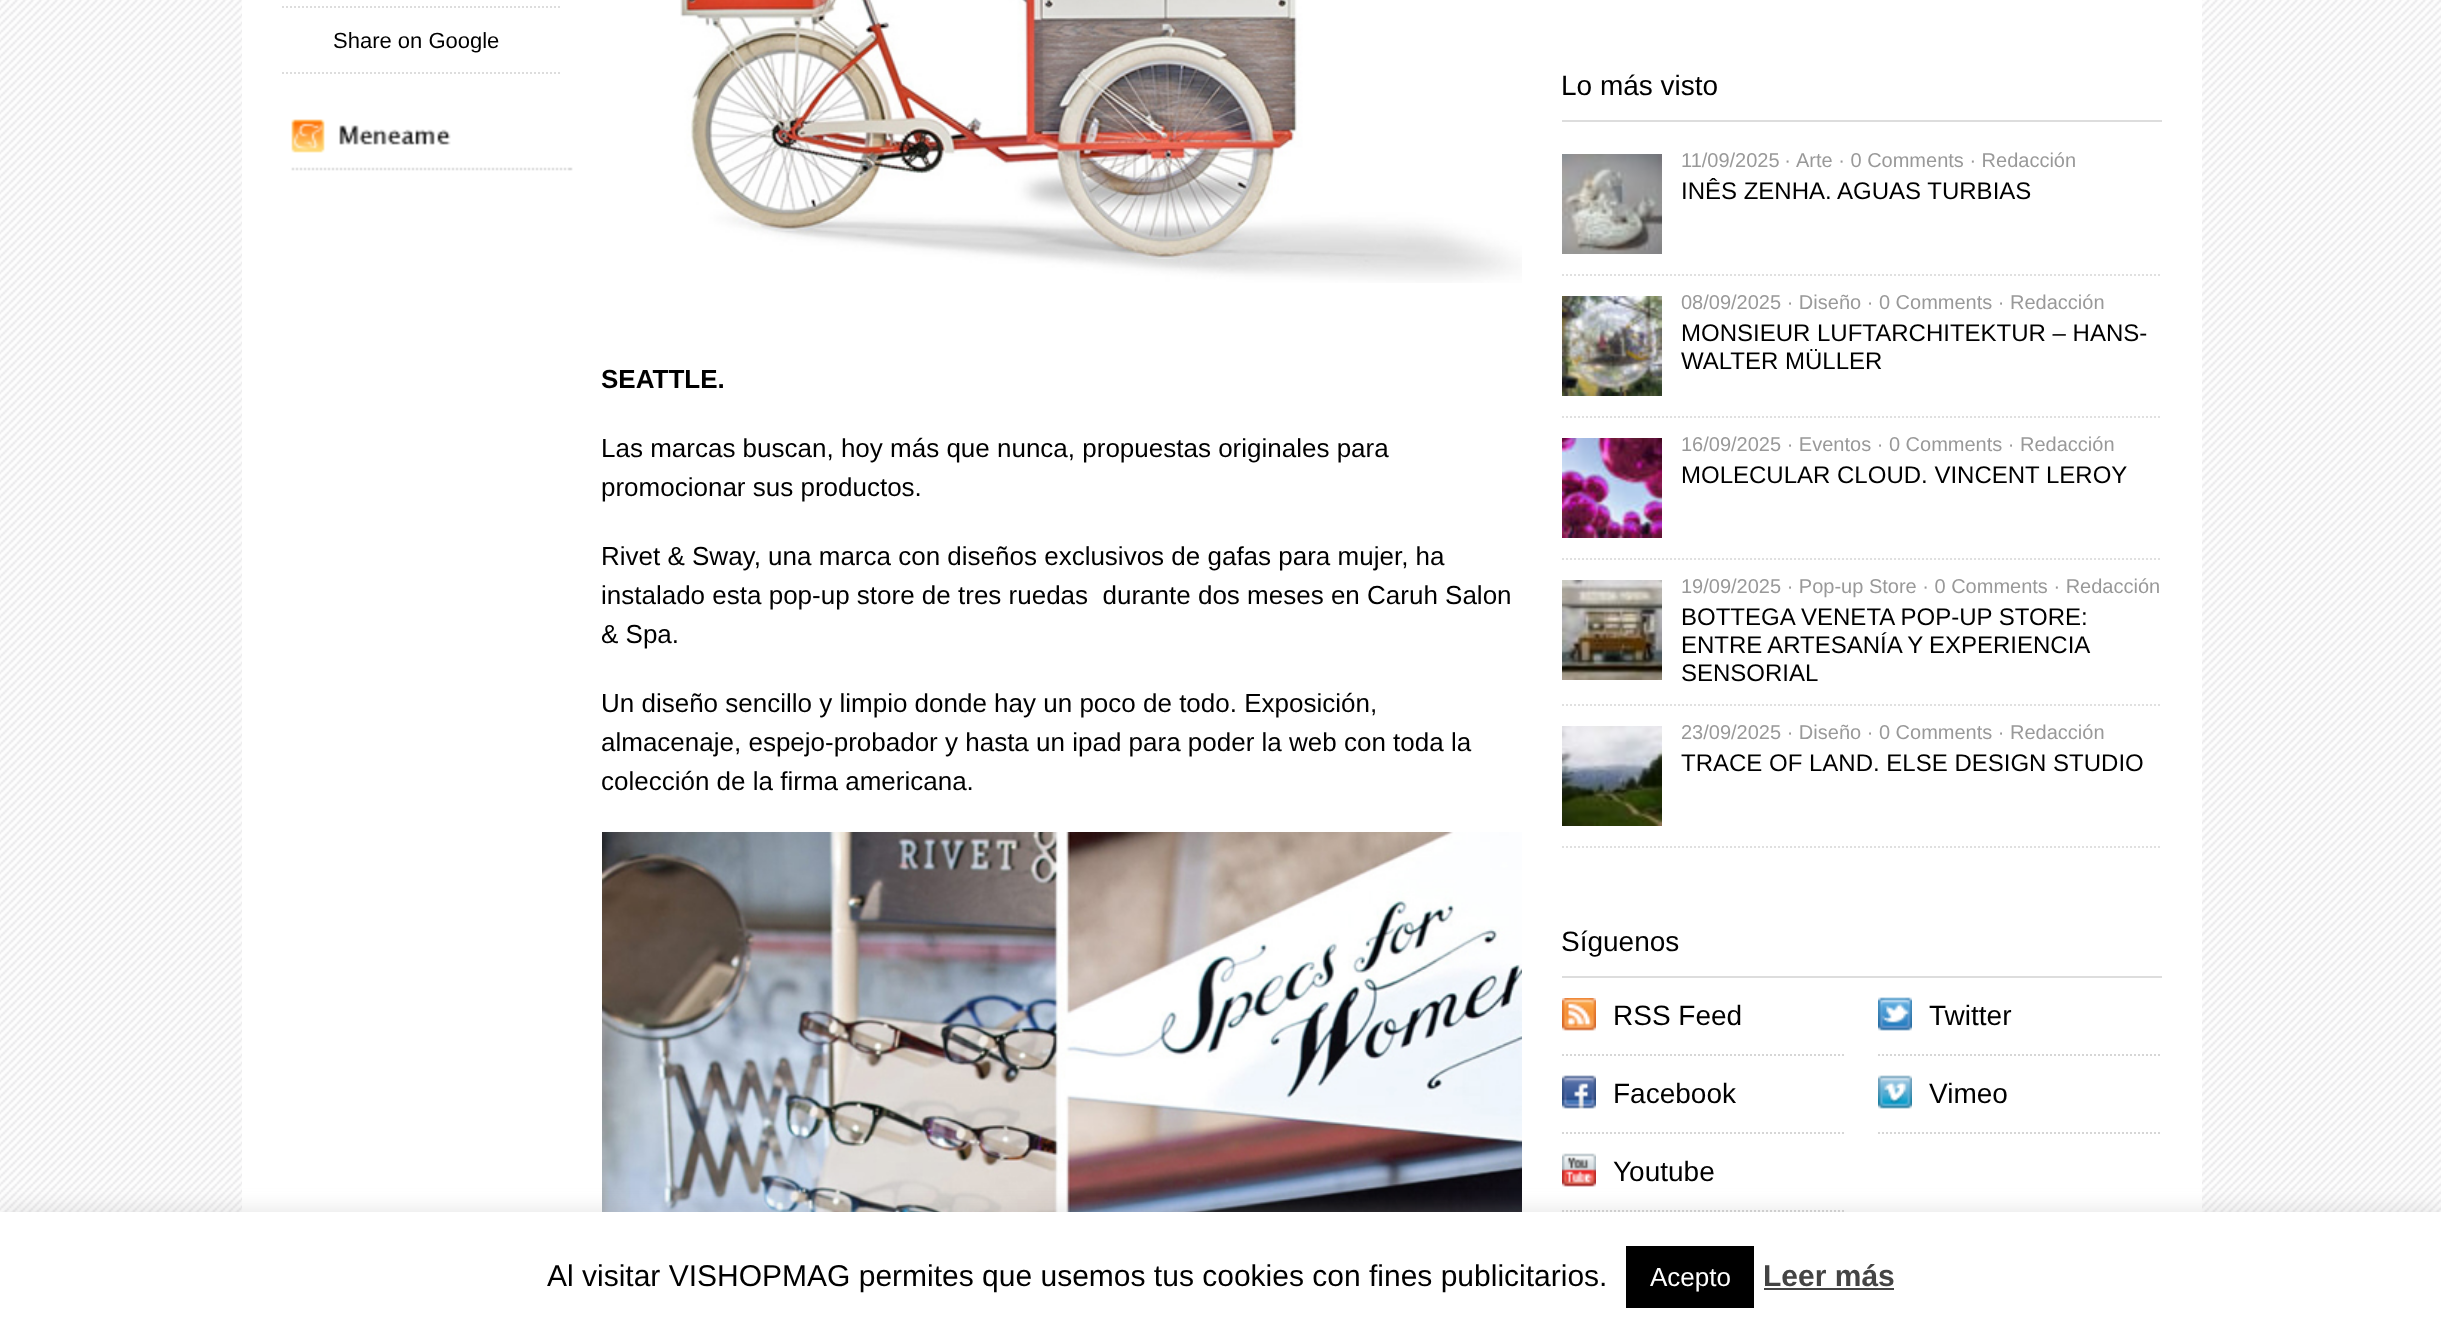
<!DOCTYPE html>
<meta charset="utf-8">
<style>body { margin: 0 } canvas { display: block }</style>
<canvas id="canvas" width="2441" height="1332"></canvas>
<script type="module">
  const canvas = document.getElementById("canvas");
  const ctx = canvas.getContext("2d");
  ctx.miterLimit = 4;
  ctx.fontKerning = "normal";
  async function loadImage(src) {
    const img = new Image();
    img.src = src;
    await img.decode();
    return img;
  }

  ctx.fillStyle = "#ffffff";
  ctx.fillRect(0, 0, 2441, 1332);
  ctx.drawImage(await loadImage("img1.png"), 0, 0, 2441, 1212);
  ctx.fillRect(242, 0, 1960, 1212);
  ctx.beginPath();
  ctx.moveTo(282, 7);
  ctx.lineTo(562, 7);
  ctx.strokeStyle = "#dddddd";
  ctx.lineWidth = 2;
  ctx.setLineDash([2, 2]);
  ctx.stroke();
  ctx.beginPath();
  ctx.moveTo(282, 73);
  ctx.lineTo(562, 73);
  ctx.stroke();
  ctx.font = "22px Liberation Sans";
  ctx.fillStyle = "#000000";
  ctx.fillText("Share on Google", 333, 48);
  ctx.drawImage(await loadImage("img2.png"), 291, 119, 282, 52);
  ctx.drawImage(await loadImage("img3.png"), 680, 0, 842, 283);
  ctx.font = "bold 26px Liberation Sans";
  ctx.fillText("SEATTLE.", 601, 388);
  ctx.font = "26px Liberation Sans";
  ctx.fillText("Las marcas buscan, hoy más que nunca, propuestas originales para", 601, 457);
  ctx.fillText("promocionar sus productos.", 601, 496);
  ctx.fillText("Rivet & Sway, una marca con diseños exclusivos de gafas para mujer, ha", 601, 565);
  ctx.fillText("instalado esta pop-up store de tres ruedas  durante dos meses en Caruh Salon", 601, 604);
  ctx.fillText("& Spa.", 601, 643);
  ctx.fillText("Un diseño sencillo y limpio donde hay un poco de todo. Exposición,", 601, 712);
  ctx.fillText("almacenaje, espejo-probador y hasta un ipad para poder la web con toda la", 601, 751);
  ctx.fillText("colección de la firma americana.", 601, 790);
  ctx.drawImage(await loadImage("img4.png"), 602, 832, 920, 380);
  ctx.fillStyle = "#dddddd";
  ctx.fillRect(1562, 120, 600, 2);
  ctx.font = "28px Liberation Sans";
  ctx.fillStyle = "#000000";
  ctx.fillText("Lo más visto", 1561, 95);
  ctx.beginPath();
  ctx.moveTo(1562, 275);
  ctx.lineTo(2162, 275);
  ctx.strokeStyle = "#e0e0e0";
  ctx.stroke();
  ctx.drawImage(await loadImage("img5.png"), 1562, 154, 100, 100);
  ctx.wordSpacing = "-1px";
  ctx.font = "20px Liberation Sans";
  ctx.fillStyle = "#999999";
  ctx.fillText("11/09/2025 ·", 1681, 167);
  ctx.wordSpacing = "0px";
  ctx.fillText("Arte · 0 Comments · Redacción", 1796, 167);
  ctx.font = "24px Liberation Sans";
  ctx.fillStyle = "#000000";
  ctx.fillText("INÊS ZENHA. AGUAS TURBIAS", 1681, 199);
  ctx.beginPath();
  ctx.moveTo(1562, 417);
  ctx.lineTo(2162, 417);
  ctx.stroke();
  ctx.drawImage(await loadImage("img6.png"), 1562, 296, 100, 100);
  ctx.font = "20px Liberation Sans";
  ctx.fillStyle = "#999999";
  ctx.fillText("08/09/2025 · Diseño · 0 Comments · Redacción", 1681, 309);
  ctx.font = "24px Liberation Sans";
  ctx.fillStyle = "#000000";
  ctx.fillText("MONSIEUR LUFTARCHITEKTUR – HANS-", 1681, 341);
  ctx.fillText("WALTER MÜLLER", 1681, 369);
  ctx.beginPath();
  ctx.moveTo(1562, 559);
  ctx.lineTo(2162, 559);
  ctx.stroke();
  ctx.drawImage(await loadImage("img7.png"), 1562, 438, 100, 100);
  ctx.font = "20px Liberation Sans";
  ctx.fillStyle = "#999999";
  ctx.fillText("16/09/2025 · Eventos · 0 Comments · Redacción", 1681, 451);
  ctx.font = "24px Liberation Sans";
  ctx.fillStyle = "#000000";
  ctx.fillText("MOLECULAR CLOUD. VINCENT LEROY", 1681, 483);
  ctx.beginPath();
  ctx.moveTo(1562, 705);
  ctx.lineTo(2162, 705);
  ctx.stroke();
  ctx.drawImage(await loadImage("img8.png"), 1562, 580, 100, 100);
  ctx.font = "20px Liberation Sans";
  ctx.fillStyle = "#999999";
  ctx.fillText("19/09/2025 · Pop-up Store · 0 Comments · Redacción", 1681, 593);
  ctx.font = "24px Liberation Sans";
  ctx.fillStyle = "#000000";
  ctx.fillText("BOTTEGA VENETA POP-UP STORE:", 1681, 625);
  ctx.wordSpacing = "-0.5px";
  ctx.fillText("ENTRE ARTESANÍA Y EXPERIENCIA", 1681, 653);
  ctx.wordSpacing = "0px";
  ctx.fillText("SENSORIAL", 1681, 681);
  ctx.beginPath();
  ctx.moveTo(1562, 847);
  ctx.lineTo(2162, 847);
  ctx.stroke();
  ctx.drawImage(await loadImage("img9.png"), 1562, 726, 100, 100);
  ctx.font = "20px Liberation Sans";
  ctx.fillStyle = "#999999";
  ctx.fillText("23/09/2025 · Diseño · 0 Comments · Redacción", 1681, 739);
  ctx.font = "24px Liberation Sans";
  ctx.fillStyle = "#000000";
  ctx.fillText("TRACE OF LAND. ELSE DESIGN STUDIO", 1681, 771);
  ctx.fillStyle = "#dddddd";
  ctx.fillRect(1562, 976, 600, 2);
  ctx.font = "28px Liberation Sans";
  ctx.fillStyle = "#000000";
  ctx.fillText("Síguenos", 1561, 951);
  ctx.beginPath();
  ctx.moveTo(1562, 1055);
  ctx.lineTo(1846, 1055);
  ctx.strokeStyle = "#d6d6d6";
  ctx.stroke();
  ctx.drawImage(await loadImage("img10.png"), 1562, 998, 34, 33);
  ctx.fillText("RSS Feed", 1613, 1025);
  ctx.beginPath();
  ctx.moveTo(1878, 1055);
  ctx.lineTo(2162, 1055);
  ctx.stroke();
  ctx.drawImage(await loadImage("img11.png"), 1878, 997, 34, 34);
  ctx.fillText("Twitter", 1929, 1025);
  ctx.beginPath();
  ctx.moveTo(1562, 1133);
  ctx.lineTo(1846, 1133);
  ctx.stroke();
  ctx.drawImage(await loadImage("img12.png"), 1562, 1075, 34, 34);
  ctx.fillText("Facebook", 1613, 1103);
  ctx.beginPath();
  ctx.moveTo(1878, 1133);
  ctx.lineTo(2162, 1133);
  ctx.stroke();
  ctx.drawImage(await loadImage("img13.png"), 1878, 1075, 34, 34);
  ctx.fillText("Vimeo", 1929, 1103);
  ctx.beginPath();
  ctx.moveTo(1562, 1211);
  ctx.lineTo(1846, 1211);
  ctx.stroke();
  ctx.drawImage(await loadImage("img14.png"), 1562, 1153, 34, 34);
  ctx.fillText("Youtube", 1613, 1181);
  ctx.fillStyle = "rgba(172, 171, 171, 0.3)";
  ctx.filter = "blur(10px)";
  ctx.beginPath();
  ctx.rect(0, 1210, 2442, 120);
  ctx.fill();
  ctx.filter = "none";
  ctx.fillStyle = "#ffffff";
  ctx.fillRect(0, 1212, 2441, 120);
  ctx.font = "30px Liberation Sans";
  ctx.fillStyle = "#000000";
  ctx.fillText("Al visitar VISHOPMAG permites que usemos tus cookies con fines publicitarios.", 547, 1286);
  ctx.fillRect(1626, 1246, 128, 62);
  ctx.font = "26px Liberation Sans";
  ctx.fillStyle = "#ffffff";
  ctx.fillText("Acepto", 1650, 1286);
  ctx.font = "bold 30px Liberation Sans";
  ctx.fillStyle = "#444444";
  ctx.fillText("Leer más", 1763, 1286);
  ctx.fillRect(1764, 1288, 130, 2);
</script>
